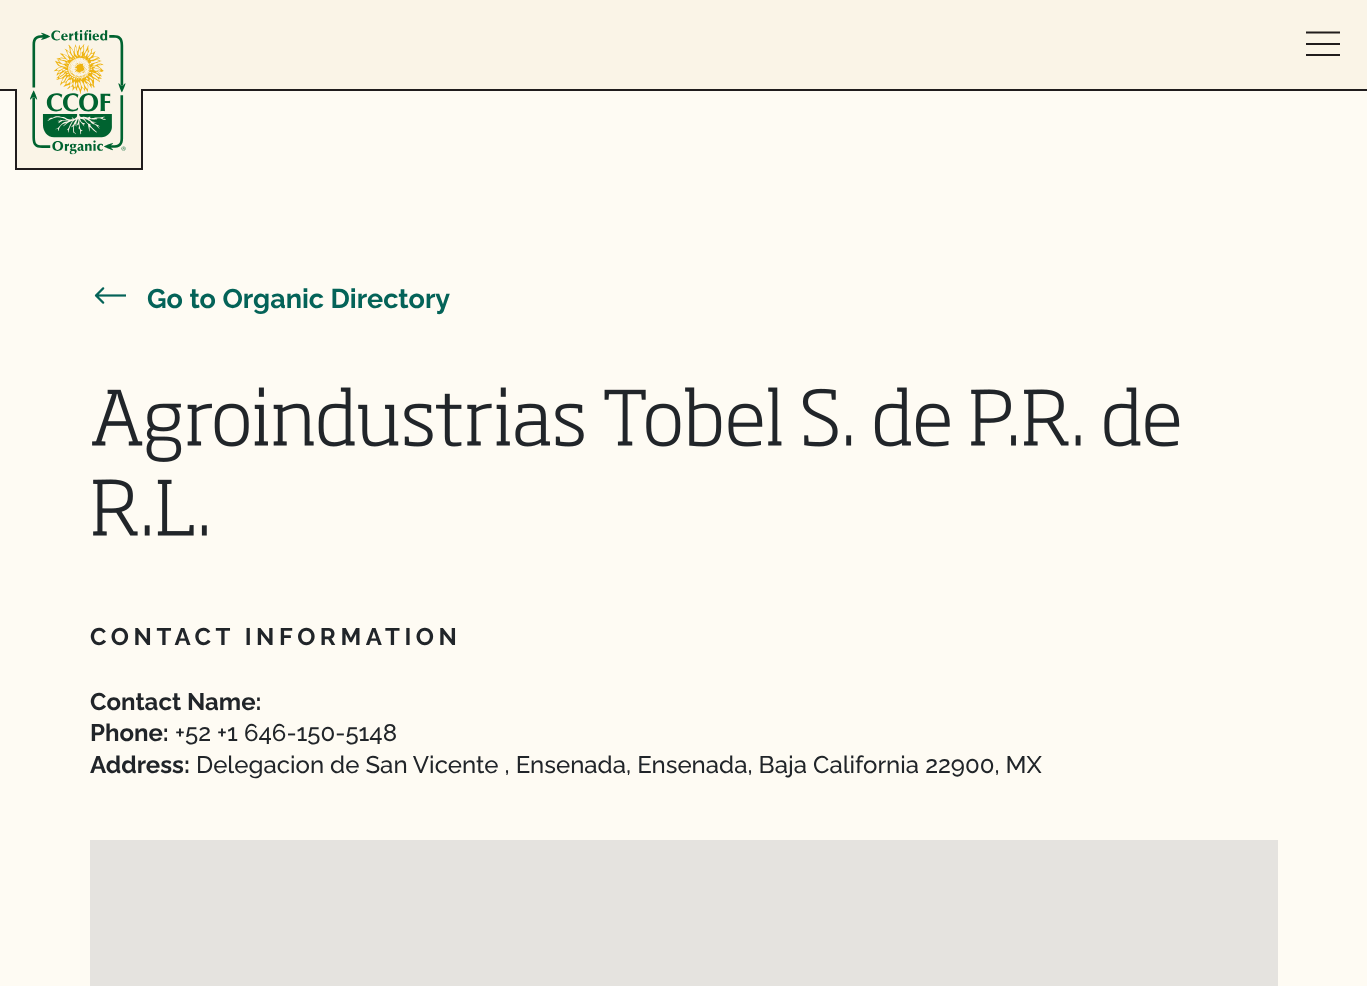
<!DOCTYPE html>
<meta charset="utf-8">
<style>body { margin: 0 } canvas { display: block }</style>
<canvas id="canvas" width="1367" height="986"></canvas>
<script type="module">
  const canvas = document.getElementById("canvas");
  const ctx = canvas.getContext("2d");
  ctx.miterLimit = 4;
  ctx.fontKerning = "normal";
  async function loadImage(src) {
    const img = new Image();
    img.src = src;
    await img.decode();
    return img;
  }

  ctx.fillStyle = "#fefbf3";
  ctx.fillRect(0, 0, 1367, 986);
  ctx.fillStyle = "#faf4e7";
  ctx.fillRect(0, 0, 1367, 89);
  ctx.fillStyle = "#201c1d";
  ctx.fillRect(0, 89, 1367, 2);
  ctx.fillStyle = "#faf4e7";
  ctx.fillRect(15, 89, 126, 79);
  ctx.drawImage(await loadImage("img1.png"), 30, 30, 96, 125);
  ctx.fillStyle = "#201c1d";
  ctx.fillRect(141, 89, 2, 81);
  ctx.fillRect(15, 168, 128, 2);
  ctx.fillRect(15, 89, 2, 81);
  ctx.beginPath();
  ctx.moveTo(1306, 32.5);
  ctx.lineTo(1340, 32.5);
  ctx.moveTo(1306, 44);
  ctx.lineTo(1340, 44);
  ctx.moveTo(1306, 55);
  ctx.lineTo(1340, 55);
  ctx.strokeStyle = "#201c1d";
  ctx.lineWidth = 2.2;
  ctx.stroke();
  ctx.drawImage(await loadImage("img2.png"), 94, 287, 32, 17);
  ctx.font = "bold 27px Raleway";
  ctx.fillStyle = "#046358";
  ctx.fillText("Go to Organic Directory", 147, 308);
  ctx.drawImage(await loadImage("img3.png"), 92, 387, 1088, 75);
  ctx.drawImage(await loadImage("img4.png"), 93, 479, 114, 57);
  ctx.letterSpacing = "4.6px";
  ctx.font = "bold 24px Raleway";
  ctx.fillStyle = "#212529";
  ctx.fillText("CONTACT INFORMATION", 90, 645);
  ctx.letterSpacing = "0px";
  ctx.fillText("Contact Name:", 90, 710);
  ctx.fillText("Phone:", 90, 741);
  ctx.font = "500 24px Raleway";
  ctx.fillText("+52 +1 646-150-5148", 175, 741);
  ctx.font = "bold 24px Raleway";
  ctx.fillText("Address:", 90, 773);
  ctx.font = "500 24px Raleway";
  ctx.fillText("Delegacion de San Vicente , Ensenada, Ensenada, Baja California 22900, MX", 196, 773);
  ctx.fillStyle = "#e5e3df";
  ctx.fillRect(90, 840, 1188, 146);
</script>
